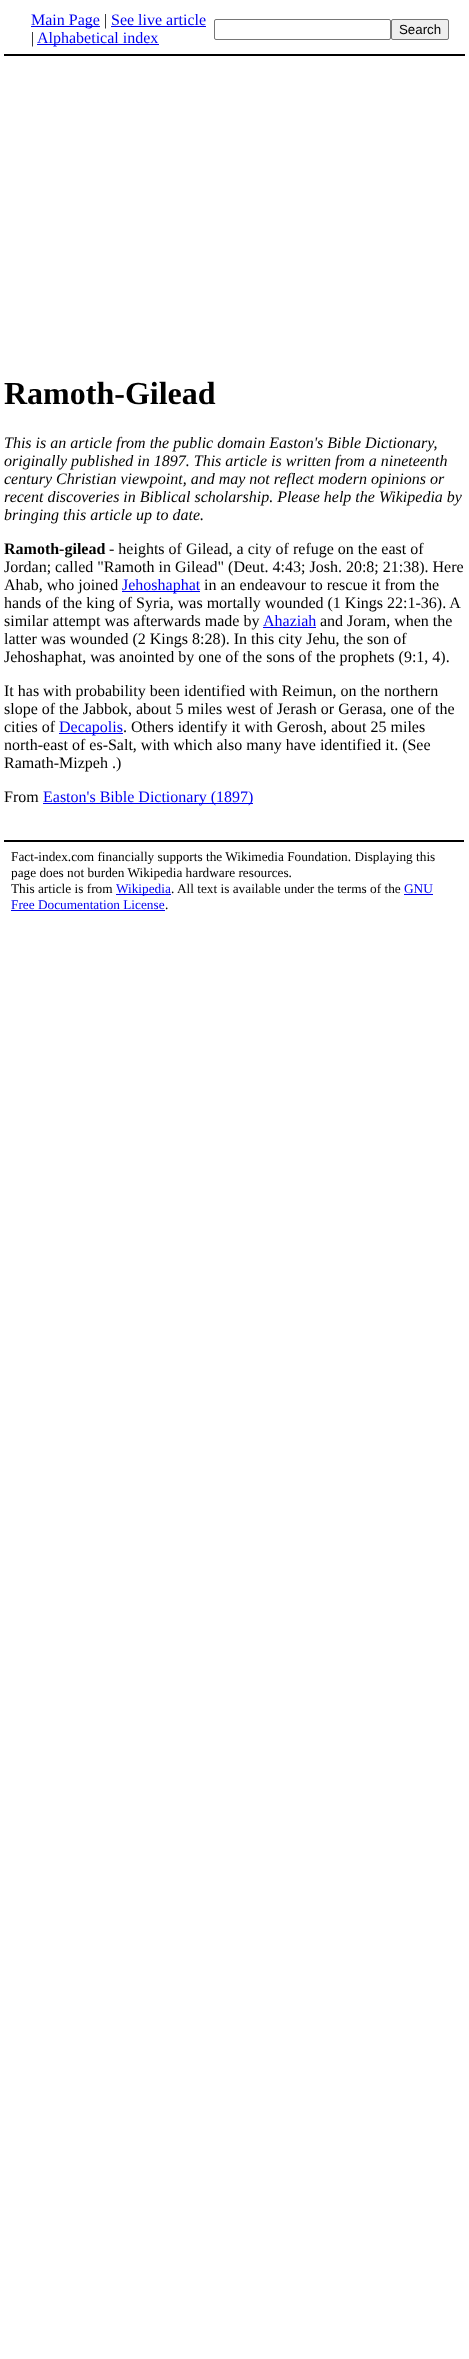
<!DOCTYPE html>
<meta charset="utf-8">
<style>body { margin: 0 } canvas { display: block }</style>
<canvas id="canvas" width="469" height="2359"></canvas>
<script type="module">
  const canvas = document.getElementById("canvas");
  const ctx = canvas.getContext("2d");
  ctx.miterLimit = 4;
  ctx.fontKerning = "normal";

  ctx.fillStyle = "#ffffff";
  ctx.fillRect(0, 0, 469, 2359);
  ctx.fillStyle = "#000000";
  ctx.fillRect(4, 54, 461, 2);
  ctx.fillStyle = "#0000ee";
  ctx.fillRect(31, 26, 69, 1);
  ctx.font = "16px Liberation Serif";
  ctx.fillText("Main Page", 31, 25);
  ctx.fillStyle = "#000000";
  ctx.fillText("|", 104, 25);
  ctx.fillStyle = "#0000ee";
  ctx.fillText("See live article", 111, 25);
  ctx.fillRect(111, 26, 95, 1);
  ctx.fillStyle = "#000000";
  ctx.fillText("|", 31, 43);
  ctx.fillStyle = "#0000ee";
  ctx.fillRect(37, 44, 122, 1);
  ctx.fillText("Alphabetical index", 37, 43);
  ctx.beginPath();
  ctx.roundRect(214.5, 19.5, 176, 20, 1.5);
  ctx.strokeStyle = "#767676";
  ctx.stroke();
  ctx.fillStyle = "#efefef";
  ctx.beginPath();
  ctx.roundRect(391.5, 19.5, 57, 20, 1.5);
  ctx.fill();
  ctx.stroke();
  ctx.font = "13.3px Liberation Sans";
  ctx.fillStyle = "#000000";
  ctx.fillText("Search", 399, 34);
  ctx.font = "bold 32px Liberation Serif";
  ctx.fillText("Ramoth-Gilead", 4, 404);
  ctx.font = "italic 16px Liberation Serif";
  ctx.fillText("This is an article from the public domain Easton's Bible Dictionary,", 4, 448);
  ctx.fillText("originally published in 1897. This article is written from a nineteenth", 4, 466);
  ctx.fillText("century Christian viewpoint, and may not reflect modern opinions or", 4, 484);
  ctx.fillText("recent discoveries in Biblical scholarship. Please help the Wikipedia by", 4, 502);
  ctx.fillText("bringing this article up to date.", 4, 520);
  ctx.font = "bold 16px Liberation Serif";
  ctx.fillText("Ramoth-gilead", 4, 554);
  ctx.font = "16px Liberation Serif";
  ctx.fillText("- heights of Gilead, a city of refuge on the east of", 109, 554);
  ctx.fillText("Jordan; called \"Ramoth in Gilead\" (Deut. 4:43; Josh. 20:8; 21:38). Here", 4, 572);
  ctx.fillText("Ahab, who joined", 4, 590);
  ctx.fillStyle = "#0000ee";
  ctx.fillRect(122, 591, 78, 1);
  ctx.fillText("Jehoshaphat", 122, 590);
  ctx.fillStyle = "#000000";
  ctx.fillText("in an endeavour to rescue it from the", 204, 590);
  ctx.fillText("hands of the king of Syria, was mortally wounded (1 Kings 22:1-36). A", 4, 608);
  ctx.fillText("similar attempt was afterwards made by", 4, 626);
  ctx.fillStyle = "#0000ee";
  ctx.fillText("Ahaziah", 263, 626);
  ctx.fillRect(263, 627, 53, 1);
  ctx.fillStyle = "#000000";
  ctx.fillText("and Joram, when the", 320, 626);
  ctx.fillText("latter was wounded (2 Kings 8:28). In this city Jehu, the son of", 4, 644);
  ctx.fillText("Jehoshaphat, was anointed by one of the sons of the prophets (9:1, 4).", 4, 662);
  ctx.fillText("It has with probability been identified with Reimun, on the northern", 4, 696);
  ctx.fillText("slope of the Jabbok, about 5 miles west of Jerash or Gerasa, one of the", 4, 714);
  ctx.fillText("cities of", 4, 732);
  ctx.fillStyle = "#0000ee";
  ctx.fillRect(59, 733, 64, 1);
  ctx.fillText("Decapolis", 59, 732);
  ctx.fillStyle = "#000000";
  ctx.fillText(". Others identify it with Gerosh, about 25 miles", 123, 732);
  ctx.fillText("north-east of es-Salt, with which also many have identified it. (See", 4, 750);
  ctx.fillText("Ramath-Mizpeh .)", 4, 768);
  ctx.fillText("From", 4, 802);
  ctx.fillStyle = "#0000ee";
  ctx.fillRect(43, 803, 210, 1);
  ctx.fillText("Easton's Bible Dictionary (1897)", 43, 802);
  ctx.fillStyle = "#000000";
  ctx.fillRect(4, 840, 460, 2);
  ctx.font = "13.3px Liberation Serif";
  ctx.fillText("Fact-index.com financially supports the Wikimedia Foundation. Displaying this", 11, 861);
  ctx.fillText("page does not burden Wikipedia hardware resources.", 11, 877);
  ctx.fillText("This article is from", 11, 893);
  ctx.fillStyle = "#0000ee";
  ctx.fillRect(116, 894, 55, 1);
  ctx.fillText("Wikipedia", 116, 893);
  ctx.fillStyle = "#000000";
  ctx.fillText(". All text is available under the terms of the", 171, 893);
  ctx.fillStyle = "#0000ee";
  ctx.fillText("GNU", 404, 893);
  ctx.fillRect(404, 894, 29, 1);
  ctx.fillText("Free Documentation License", 11, 909);
  ctx.fillStyle = "#000000";
  ctx.fillText(".", 165, 909);
  ctx.fillStyle = "#0000ee";
  ctx.fillRect(11, 910, 154, 1);
</script>
